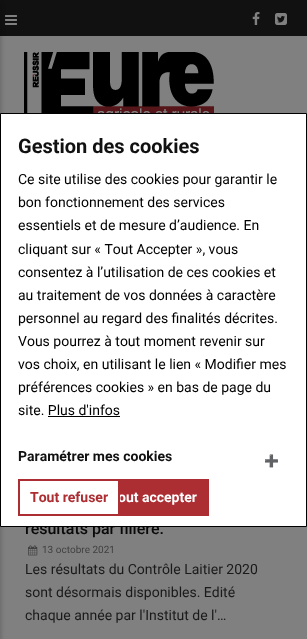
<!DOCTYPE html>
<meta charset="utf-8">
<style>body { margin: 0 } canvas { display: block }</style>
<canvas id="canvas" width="307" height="639"></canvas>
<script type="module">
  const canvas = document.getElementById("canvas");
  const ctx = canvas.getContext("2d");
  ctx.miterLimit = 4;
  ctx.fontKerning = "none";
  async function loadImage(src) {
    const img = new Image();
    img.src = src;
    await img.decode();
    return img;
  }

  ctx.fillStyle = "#808080";
  ctx.fillRect(0, 0, 307, 639);
  ctx.fillStyle = "#111111";
  ctx.fillRect(0, 0, 307, 36);
  ctx.drawImage(await loadImage("img1.png"), 5, 15, 12, 10);
  ctx.fillStyle = "rgba(0, 0, 0, 0.2)";
  ctx.filter = "blur(2px)";
  ctx.beginPath();
  ctx.rect(-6, 3, 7, 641);
  ctx.fill();
  ctx.filter = "none";
  ctx.font = "500 16px Roboto";
  ctx.fillStyle = "#090909";
  ctx.fillText("résultats par filière.", 25, 534);
  ctx.fillStyle = "#ffffff";
  ctx.beginPath();
  ctx.rect(0.5, 113.5, 306, 413);
  ctx.fill();
  ctx.strokeStyle = "#000000";
  ctx.stroke();
  ctx.font = "bold 20px Roboto";
  ctx.fillStyle = "#111111";
  ctx.fillText("Gestion des cookies", 18, 153);
  ctx.font = "14px Roboto";
  ctx.fillStyle = "#000000";
  ctx.fillText("Ce site utilise des cookies pour garantir le", 18, 184);
  ctx.fillText("bon fonctionnement des services", 18, 207);
  ctx.fillText("essentiels et de mesure d’audience. En", 18, 230);
  ctx.fillText("cliquant sur « Tout Accepter », vous", 18, 254);
  ctx.fillText("consentez à l’utilisation de ces cookies et", 18, 277);
  ctx.fillText("au traitement de vos données à caractère", 18, 300);
  ctx.fillText("personnel au regard des finalités décrites.", 18, 323);
  ctx.fillText("Vous pourrez à tout moment revenir sur", 18, 346);
  ctx.fillText("vos choix, en utilisant le lien « Modifier mes", 18, 369);
  ctx.fillText("préférences cookies » en bas de page du", 18, 392);
  ctx.fillText("site. Plus d'infos", 18, 415);
  ctx.fillRect(48, 416, 72, 1);
  ctx.font = "bold 14px Roboto";
  ctx.fillStyle = "#111111";
  ctx.fillText("Paramétrer mes cookies", 18, 461);
  ctx.font = "bold 12px Noto Color Emoji";
  ctx.fillText("➕", 264, 465);
  ctx.fillStyle = "#ac2d32";
  ctx.fillRect(120, 479, 89, 37);
  ctx.font = "bold 14px Roboto";
  ctx.fillStyle = "#ffffff";
  ctx.fillText("out accepter", 118, 502);
  ctx.strokeStyle = "#ac2d32";
  ctx.lineWidth = 2;
  ctx.strokeRect(19, 480, 100, 35);
  ctx.fillStyle = "#ac2d32";
  ctx.fillText("Tout refuser", 30, 502);
  ctx.drawImage(await loadImage("img2.png"), 252, 12, 8, 13);
  ctx.drawImage(await loadImage("img3.png"), 275, 13, 12, 12);
  ctx.drawImage(await loadImage("img4.png"), 24, 52, 190, 61);
  ctx.drawImage(await loadImage("img5.png"), 28, 545, 10, 11);
  ctx.font = "10px Roboto";
  ctx.fillStyle = "#414141";
  ctx.fillText("13 octobre 2021", 42, 553);
  ctx.font = "14px Roboto";
  ctx.fillStyle = "#1a1a1a";
  ctx.fillText("Les résultats du Contrôle Laitier 2020", 25, 574);
  ctx.fillText("sont désormais disponibles. Edité", 25, 597);
  ctx.fillText("chaque année par l'Institut de l'…", 25, 620);
</script>
